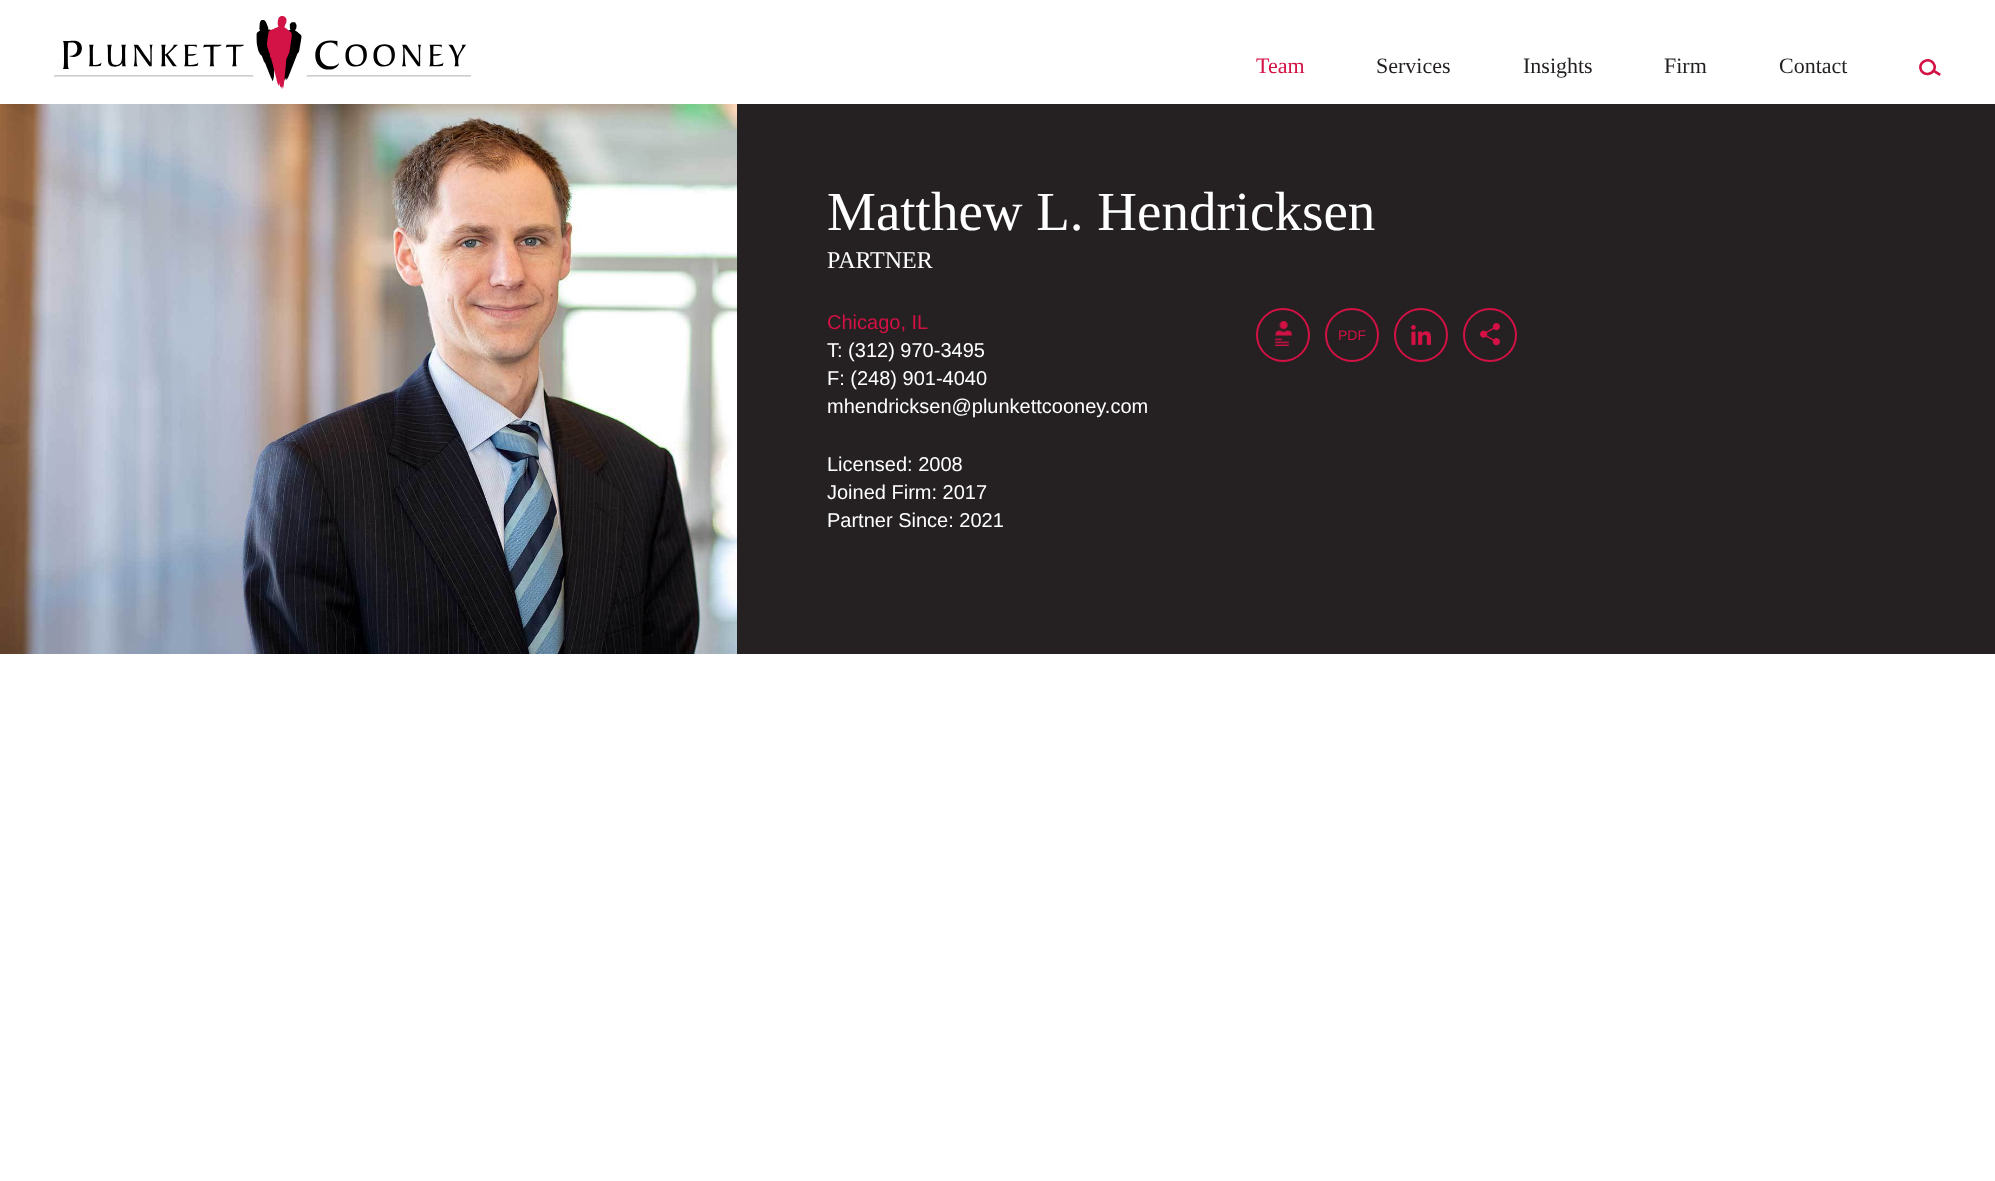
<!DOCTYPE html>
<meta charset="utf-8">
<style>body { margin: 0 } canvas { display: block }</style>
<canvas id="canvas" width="1995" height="1181"></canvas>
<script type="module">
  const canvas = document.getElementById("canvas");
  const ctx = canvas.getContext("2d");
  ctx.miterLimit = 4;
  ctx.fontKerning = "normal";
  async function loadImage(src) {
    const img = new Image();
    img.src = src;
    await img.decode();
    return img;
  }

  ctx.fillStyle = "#ffffff";
  ctx.fillRect(0, 0, 1995, 1181);
  ctx.drawImage(await loadImage("img1.png"), 54, 16, 417, 73);
  ctx.font = "22px Liberation Serif";
  ctx.fillStyle = "#d31145";
  ctx.fillText("Team", 1256, 73);
  ctx.fillStyle = "#231f20";
  ctx.fillText("Services", 1376, 73);
  ctx.fillText("Insights", 1523, 73);
  ctx.fillText("Firm", 1664, 73);
  ctx.fillText("Contact", 1779, 73);
  ctx.drawImage(await loadImage("img2.png"), 1919, 59, 22, 17);
  ctx.drawImage(await loadImage("img3.png"), 0, 104, 737, 550);
  ctx.fillStyle = "#252122";
  ctx.fillRect(737, 104, 1258, 550);
  ctx.font = "55px Liberation Serif";
  ctx.fillStyle = "#ffffff";
  ctx.fillText("Matthew L. Hendricksen", 827, 230);
  ctx.font = "24px Liberation Serif";
  ctx.fillText("PARTNER", 827, 268);
  ctx.font = "20px Liberation Sans";
  ctx.fillStyle = "#d31145";
  ctx.fillText("Chicago, IL", 827, 329);
  ctx.fillStyle = "#ffffff";
  ctx.fillText("T: (312) 970-3495", 827, 357);
  ctx.fillText("F: (248) 901-4040", 827, 385);
  ctx.fillText("mhendricksen@plunkettcooney.com", 827, 413);
  ctx.drawImage(await loadImage("img4.png"), 1275, 321, 17, 25);
  ctx.beginPath();
  ctx.arc(1283, 335, 26, 0, Math.PI * 2);
  ctx.strokeStyle = "#d31145";
  ctx.lineWidth = 2;
  ctx.stroke();
  ctx.beginPath();
  ctx.arc(1352, 335, 26, 0, Math.PI * 2);
  ctx.stroke();
  ctx.font = "14px Liberation Sans";
  ctx.fillStyle = "#d31145";
  ctx.fillText("PDF", 1338, 340);
  ctx.drawImage(await loadImage("img5.png"), 1411, 325, 20, 20);
  ctx.beginPath();
  ctx.arc(1421, 335, 26, 0, Math.PI * 2);
  ctx.stroke();
  ctx.drawImage(await loadImage("img6.png"), 1480, 323, 20, 23);
  ctx.beginPath();
  ctx.arc(1490, 335, 26, 0, Math.PI * 2);
  ctx.stroke();
  ctx.font = "20px Liberation Sans";
  ctx.fillStyle = "#ffffff";
  ctx.fillText("Licensed: 2008", 827, 471);
  ctx.fillText("Joined Firm: 2017", 827, 499);
  ctx.fillText("Partner Since: 2021", 827, 527);
</script>
